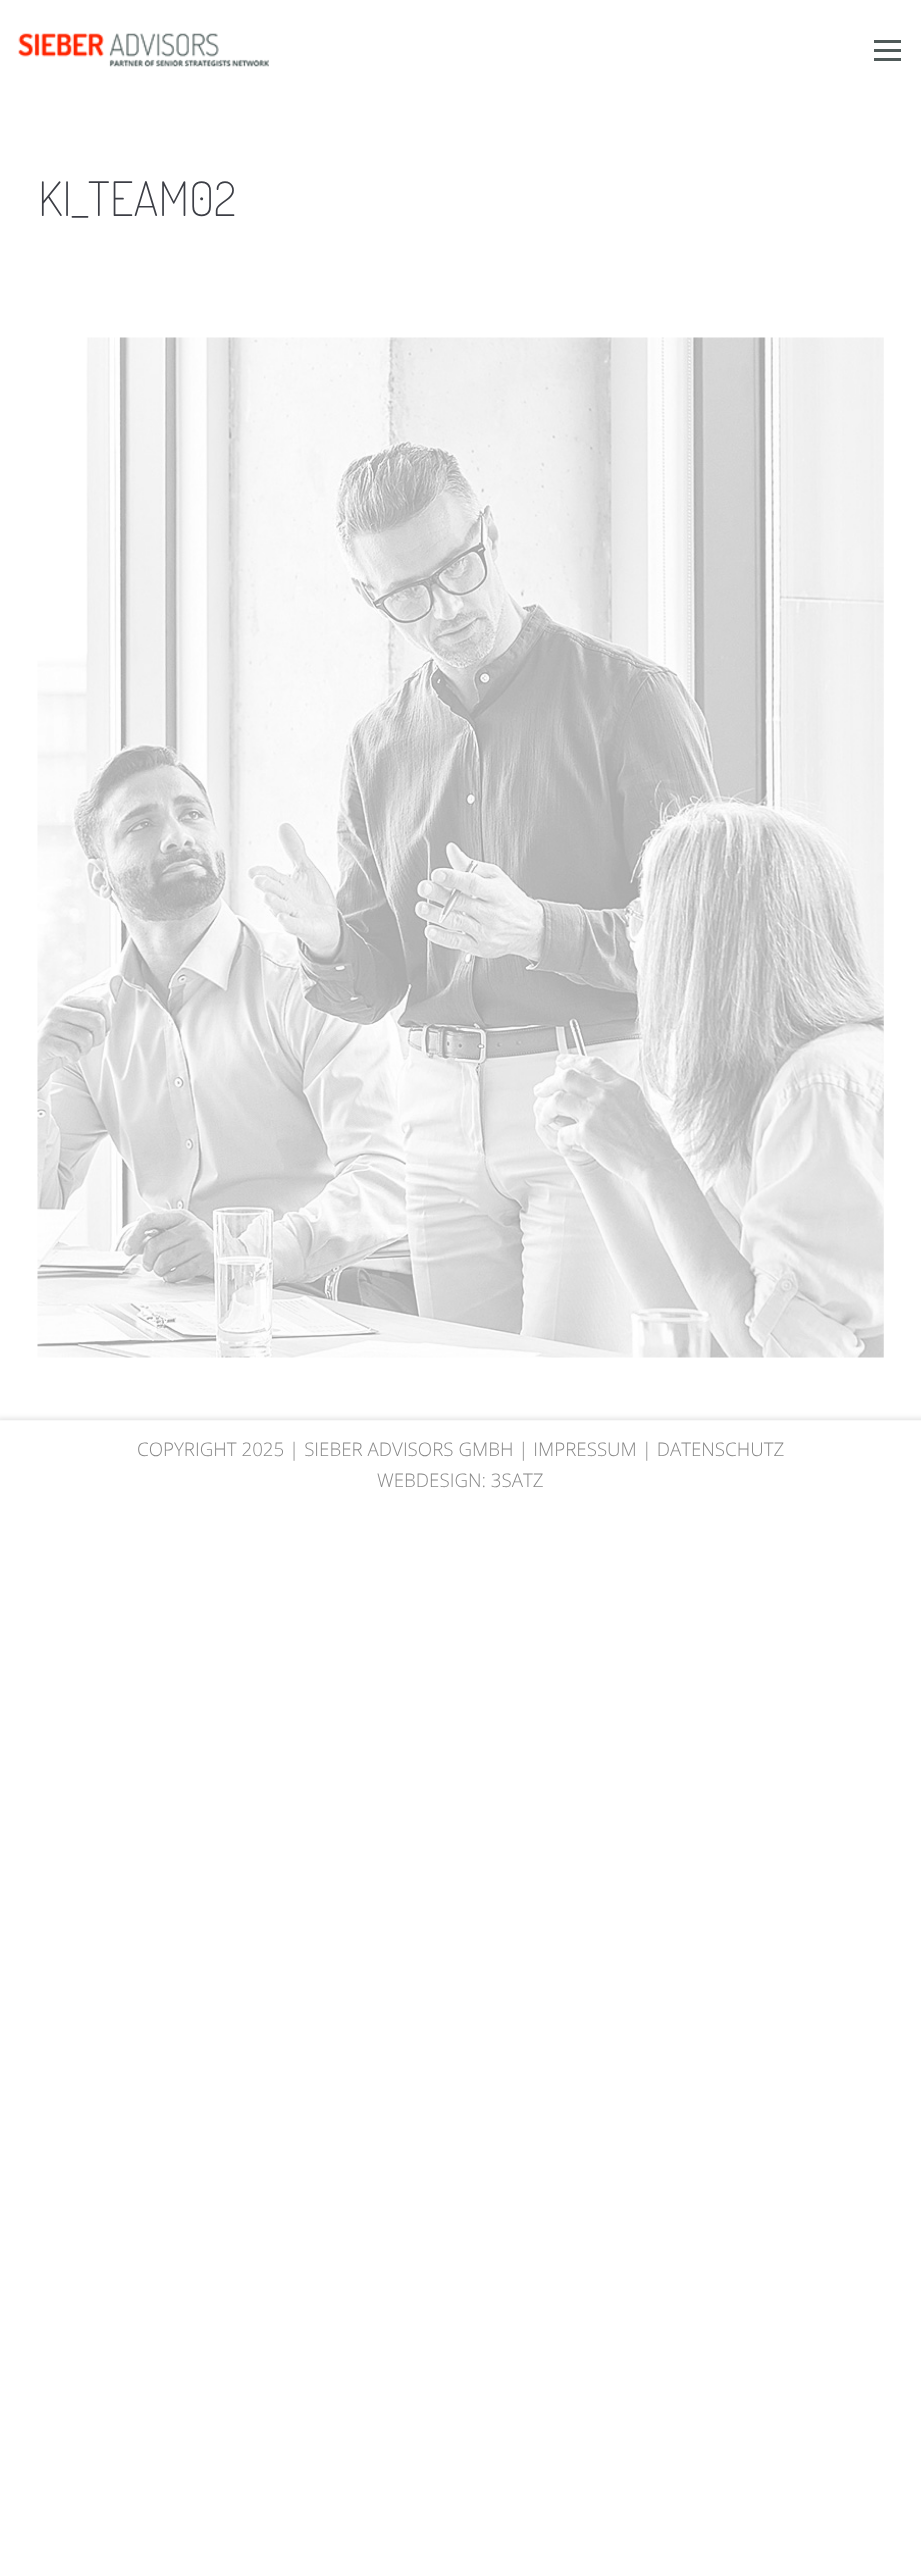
<!DOCTYPE html>
<meta charset="utf-8">
<style>body { margin: 0 } canvas { display: block }</style>
<canvas id="canvas" width="921" height="2573"></canvas>
<script type="module">
  const canvas = document.getElementById("canvas");
  const ctx = canvas.getContext("2d");
  ctx.miterLimit = 4;
  ctx.fontKerning = "normal";
  async function loadImage(src) {
    const img = new Image();
    img.src = src;
    await img.decode();
    return img;
  }

  ctx.fillStyle = "#ffffff";
  ctx.fillRect(0, 0, 921, 2573);
  ctx.drawImage(await loadImage("img1.png"), 18, 33, 251, 34);
  ctx.fillStyle = "#505a59";
  ctx.fillRect(874, 40, 27, 3);
  ctx.fillRect(874, 49, 27, 3);
  ctx.fillRect(874, 58, 27, 3);
  ctx.font = "200 47.5px Dosis";
  ctx.fillStyle = "#3c3e45";
  ctx.fillText("KI_TEAM02", 38, 216);
  ctx.drawImage(await loadImage("img2.png"), 37, 337, 847, 1021);
  ctx.save();
  ctx.beginPath();
  ctx.rect(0, 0, 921, 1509);
  ctx.clip();
  ctx.beginPath();
  ctx.moveTo(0, 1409);
  ctx.lineTo(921, 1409);
  ctx.lineTo(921, 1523);
  ctx.lineTo(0, 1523);
  ctx.closePath();
  ctx.moveTo(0, 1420);
  ctx.lineTo(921, 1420);
  ctx.lineTo(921, 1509);
  ctx.lineTo(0, 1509);
  ctx.closePath();
  ctx.clip("evenodd");
  ctx.fillStyle = "rgba(0, 0, 0, 0.1)";
  ctx.filter = "blur(2.5px)";
  ctx.beginPath();
  ctx.rect(-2, 1418, 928, 96);
  ctx.fill();
  ctx.filter = "none";
  ctx.restore();
  ctx.fillStyle = "#f9f9f9";
  ctx.fillRect(0, 1420, 921, 1);
  ctx.font = "300 18.75px Open Sans";
  ctx.fillStyle = "#888888";
  ctx.fillText("COPYRIGHT 2025 | SIEBER ADVISORS GMBH | IMPRESSUM | DATENSCHUTZ", 137, 1456);
  ctx.fillText("WEBDESIGN: 3SATZ", 377, 1487);
</script>
